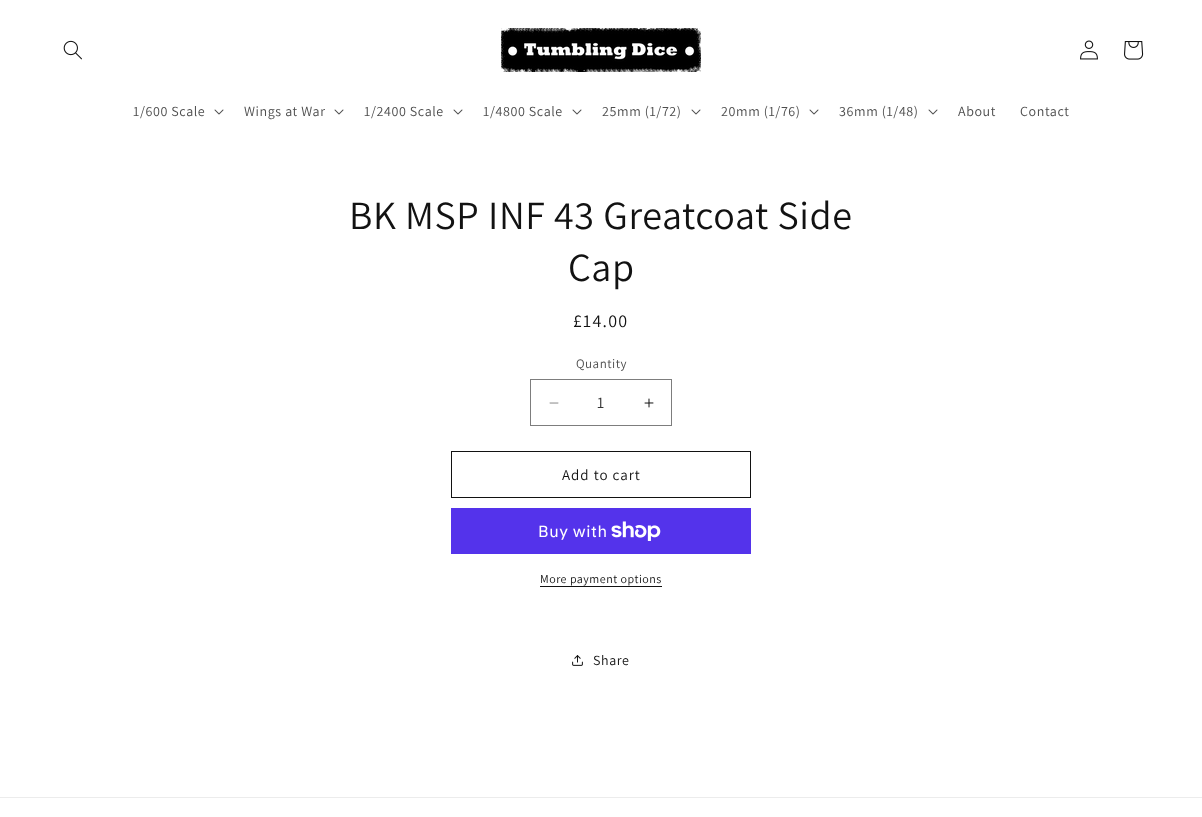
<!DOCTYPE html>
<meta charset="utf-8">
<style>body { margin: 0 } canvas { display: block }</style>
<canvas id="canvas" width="1202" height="817"></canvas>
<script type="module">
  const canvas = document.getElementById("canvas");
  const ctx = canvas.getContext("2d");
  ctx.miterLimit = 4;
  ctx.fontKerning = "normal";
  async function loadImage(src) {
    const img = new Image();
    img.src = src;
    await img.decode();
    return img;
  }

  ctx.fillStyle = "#ffffff";
  ctx.fillRect(0, 0, 1202, 817);
  ctx.drawImage(await loadImage("img1.png"), 63, 40, 19, 20);
  ctx.drawImage(await loadImage("img2.png"), 501, 28, 200, 44);
  ctx.drawImage(await loadImage("img3.png"), 1080, 40, 18, 20);
  ctx.drawImage(await loadImage("img4.png"), 1124, 41, 20, 19);
  ctx.letterSpacing = "0.6px";
  ctx.font = "14px Assistant";
  ctx.fillStyle = "#4d4d4d";
  ctx.fillText("1/600 Scale", 133, 116);
  ctx.drawImage(await loadImage("img5.png"), 214, 109, 10, 6);
  ctx.fillText("Wings at War", 244, 116);
  ctx.drawImage(await loadImage("img5.png"), 334, 109, 10, 6);
  ctx.fillText("1/2400 Scale", 364, 116);
  ctx.drawImage(await loadImage("img5.png"), 453, 109, 10, 6);
  ctx.fillText("1/4800 Scale", 483, 116);
  ctx.drawImage(await loadImage("img5.png"), 572, 109, 10, 6);
  ctx.fillText("25mm (1/72)", 602, 116);
  ctx.drawImage(await loadImage("img5.png"), 691, 109, 10, 6);
  ctx.fillText("20mm (1/76)", 721, 116);
  ctx.drawImage(await loadImage("img5.png"), 809, 109, 10, 6);
  ctx.fillText("36mm (1/48)", 839, 116);
  ctx.drawImage(await loadImage("img5.png"), 928, 109, 10, 6);
  ctx.fillText("About", 958, 116);
  ctx.fillText("Contact", 1020, 116);
  ctx.font = "40px Assistant";
  ctx.fillStyle = "#121212";
  ctx.fillText("BK MSP INF 43 Greatcoat Side", 349, 229);
  ctx.fillText("Cap", 568, 281);
  ctx.letterSpacing = "1.25px";
  ctx.font = "18px Assistant";
  ctx.fillText("£14.00", 573, 327);
  ctx.letterSpacing = "0.5px";
  ctx.font = "13px Assistant";
  ctx.fillStyle = "#4d4d4d";
  ctx.fillText("Quantity", 576, 368);
  ctx.drawImage(await loadImage("img6.png"), 549, 402, 10, 2);
  ctx.drawImage(await loadImage("img7.png"), 644, 398, 10, 10);
  ctx.strokeStyle = "#7d7d7d";
  ctx.strokeRect(530.5, 379.5, 141, 46);
  ctx.letterSpacing = "0px";
  ctx.font = "16px Assistant";
  ctx.fillStyle = "#363636";
  ctx.fillText("1", 597, 408);
  ctx.strokeStyle = "#121212";
  ctx.strokeRect(451.5, 451.5, 299, 46);
  ctx.letterSpacing = "1px";
  ctx.font = "15px Assistant";
  ctx.fillStyle = "#121212";
  ctx.fillText("Add to cart", 562, 480);
  ctx.fillStyle = "#5433eb";
  ctx.fillRect(451, 508, 300, 46);
  ctx.letterSpacing = "0.6px";
  ctx.font = "16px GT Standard";
  ctx.fillStyle = "#ffffff";
  ctx.fillText("Buy with", 538, 537);
  ctx.drawImage(await loadImage("img8.png"), 611, 521, 50, 20);
  ctx.letterSpacing = "0.5px";
  ctx.font = "12px Assistant";
  ctx.fillStyle = "#121212";
  ctx.fillText("More payment options", 540, 583);
  ctx.fillRect(540, 586, 122, 1);
  ctx.drawImage(await loadImage("img9.png"), 572, 655, 11, 11);
  ctx.letterSpacing = "0.6px";
  ctx.font = "14px Assistant";
  ctx.fillText("Share", 593, 665);
  ctx.fillStyle = "#ececec";
  ctx.fillRect(0, 797, 1202, 1);
</script>
